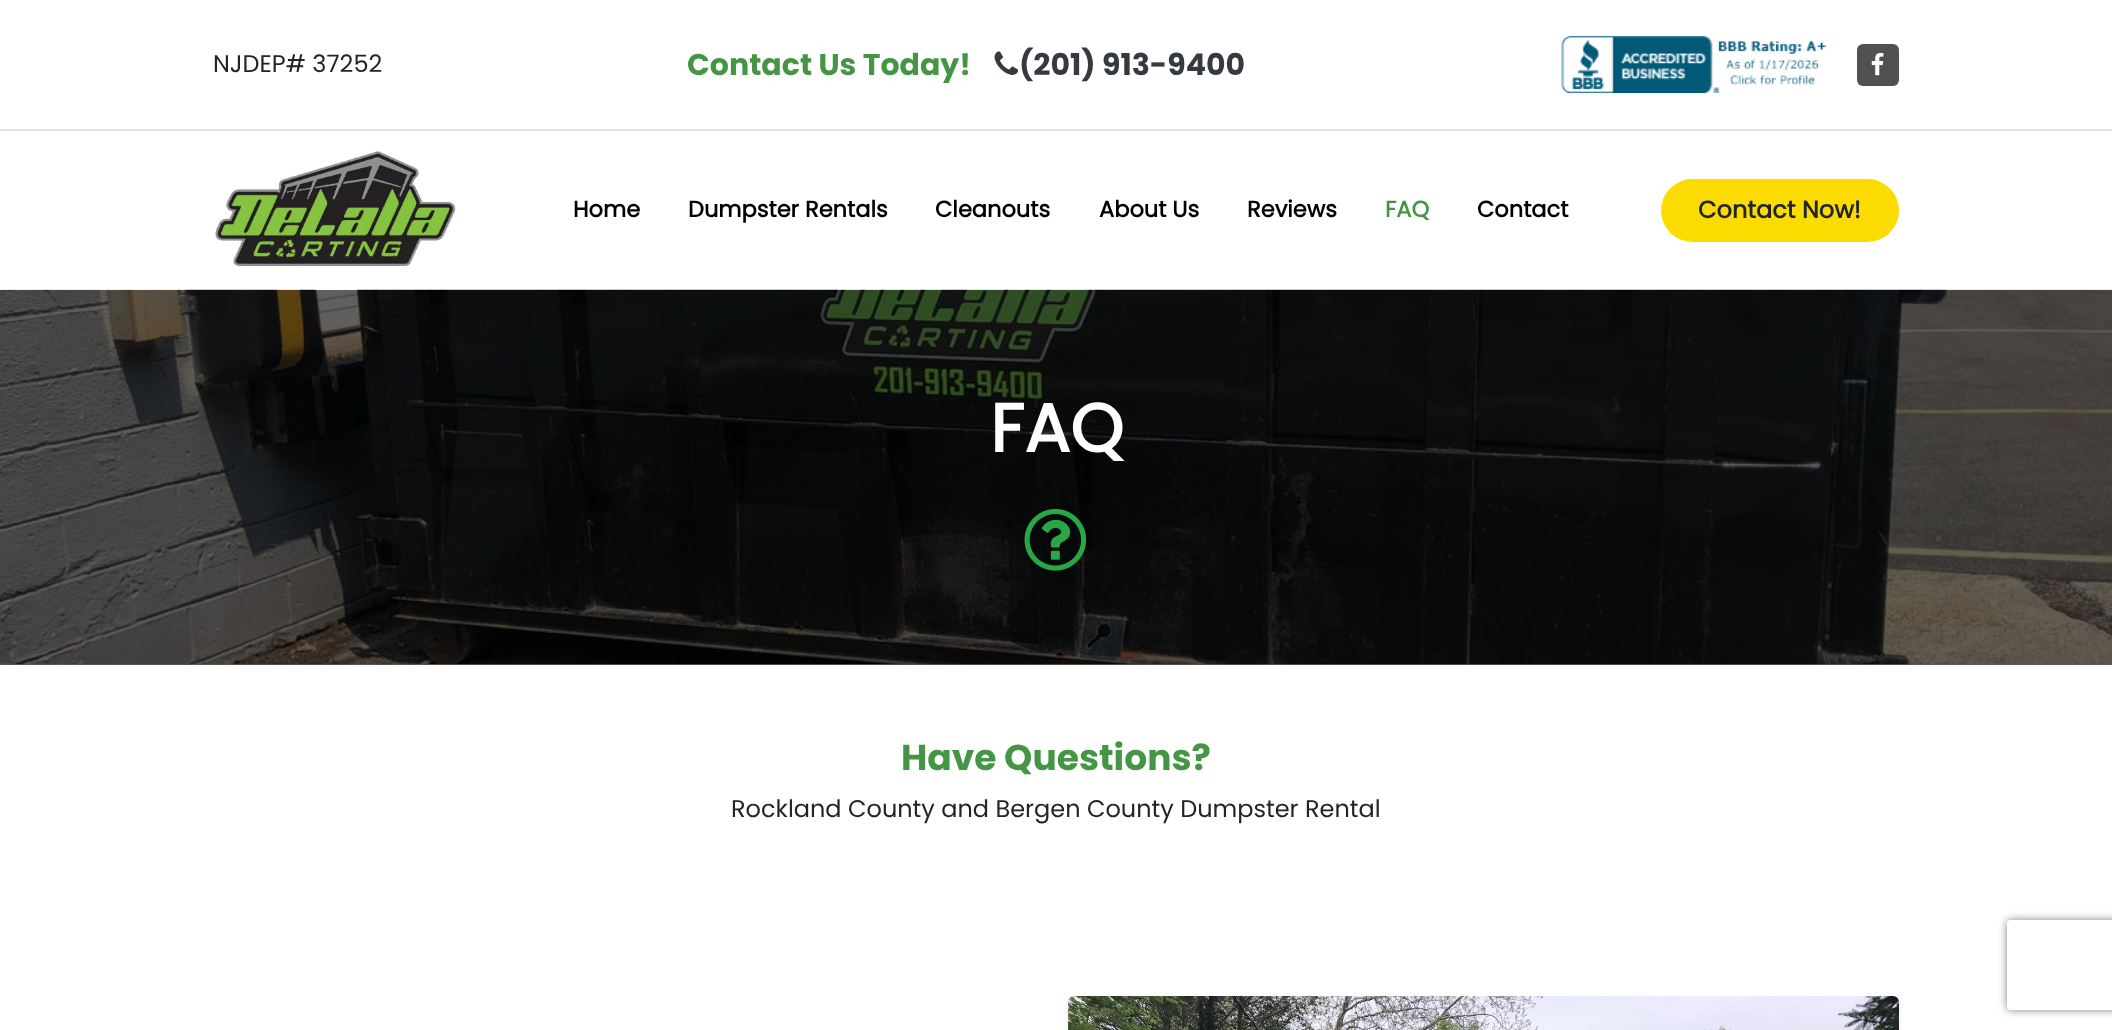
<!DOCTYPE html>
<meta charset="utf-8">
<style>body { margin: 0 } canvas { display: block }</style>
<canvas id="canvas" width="2112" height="1030"></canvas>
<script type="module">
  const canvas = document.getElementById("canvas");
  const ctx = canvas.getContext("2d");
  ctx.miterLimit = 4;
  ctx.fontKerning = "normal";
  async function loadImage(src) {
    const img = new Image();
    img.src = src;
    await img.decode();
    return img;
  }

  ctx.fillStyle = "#ffffff";
  ctx.fillRect(0, 0, 2112, 1030);
  ctx.fillStyle = "#dee2e6";
  ctx.fillRect(0, 129, 2112, 2);
  ctx.font = "24px Poppins";
  ctx.fillStyle = "#212529";
  ctx.fillText("NJDEP# 37252", 213, 72);
  ctx.font = "bold 30px Poppins";
  ctx.fillStyle = "#449644";
  ctx.fillText("Contact Us Today!", 687, 75);
  ctx.drawImage(await loadImage("img1.png"), 994, 51, 24, 24);
  ctx.fillStyle = "#343a40";
  ctx.fillText("(201) 913-9400", 1019, 75);
  ctx.drawImage(await loadImage("img2.png"), 1561, 36, 266, 57);
  ctx.fillStyle = "#515151";
  ctx.beginPath();
  ctx.roundRect(1857, 44, 42, 42, 6);
  ctx.fill();
  ctx.drawImage(await loadImage("img3.png"), 1871, 52, 13, 24);
  ctx.drawImage(await loadImage("img4.png"), 215, 151, 241, 115);
  ctx.font = "bold 22.5px 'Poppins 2'";
  ctx.fillStyle = "#000000";
  ctx.fillText("Home", 573, 217);
  ctx.fillText("Dumpster Rentals", 688, 217);
  ctx.fillText("Cleanouts", 935, 217);
  ctx.fillText("About Us", 1099, 217);
  ctx.fillText("Reviews", 1247, 217);
  ctx.fillStyle = "#449644";
  ctx.fillText("FAQ", 1385, 217);
  ctx.fillStyle = "#000000";
  ctx.fillText("Contact", 1477, 217);
  ctx.fillStyle = "#fbdb00";
  ctx.beginPath();
  ctx.roundRect(1661, 179, 238, 63, 31.5);
  ctx.fill();
  ctx.font = "bold 24px 'Poppins 2'";
  ctx.fillStyle = "#212529";
  ctx.fillText("Contact Now!", 1698, 218);
  ctx.fillStyle = "#5c5c5c";
  ctx.fillRect(0, 664, 2112, 1);
  ctx.drawImage(await loadImage("img5.png"), 0, 289, 2112, 376);
  ctx.font = "bold 68px 'Poppins 2'";
  ctx.fillStyle = "#ffffff";
  ctx.fillText("FAQ", 990, 452);
  ctx.drawImage(await loadImage("img6.png"), 1024, 508, 63, 63);
  ctx.font = "bold 36px Poppins";
  ctx.fillStyle = "#449644";
  ctx.fillText("Have Questions?", 901, 770);
  ctx.font = "24px Poppins";
  ctx.fillStyle = "#212529";
  ctx.fillText("Rockland County and Bergen County Dumpster Rental", 731, 817);
  ctx.fillStyle = "rgba(0, 0, 0, 0.07)";
  ctx.filter = "blur(3px)";
  ctx.beginPath();
  ctx.roundRect(1068, 999, 831, 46, 6);
  ctx.fill();
  ctx.filter = "none";
  ctx.drawImage(await loadImage("img7.png"), 1068, 996, 831, 34);
  ctx.save();
  ctx.beginPath();
  ctx.moveTo(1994, 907);
  ctx.lineTo(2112, 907);
  ctx.lineTo(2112, 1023);
  ctx.lineTo(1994, 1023);
  ctx.closePath();
  ctx.moveTo(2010, 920);
  ctx.lineTo(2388, 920);
  ctx.bezierCurveTo(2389.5, 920, 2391, 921.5, 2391, 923);
  ctx.lineTo(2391, 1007);
  ctx.bezierCurveTo(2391, 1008.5, 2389.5, 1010, 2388, 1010);
  ctx.lineTo(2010, 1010);
  ctx.bezierCurveTo(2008.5, 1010, 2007, 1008.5, 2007, 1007);
  ctx.lineTo(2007, 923);
  ctx.bezierCurveTo(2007, 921.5, 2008.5, 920, 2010, 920);
  ctx.closePath();
  ctx.clip("evenodd");
  ctx.fillStyle = "#808080";
  ctx.filter = "blur(4px)";
  ctx.beginPath();
  ctx.roundRect(2007, 920, 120, 90, 3);
  ctx.fill();
  ctx.filter = "none";
  ctx.restore();
</script>
